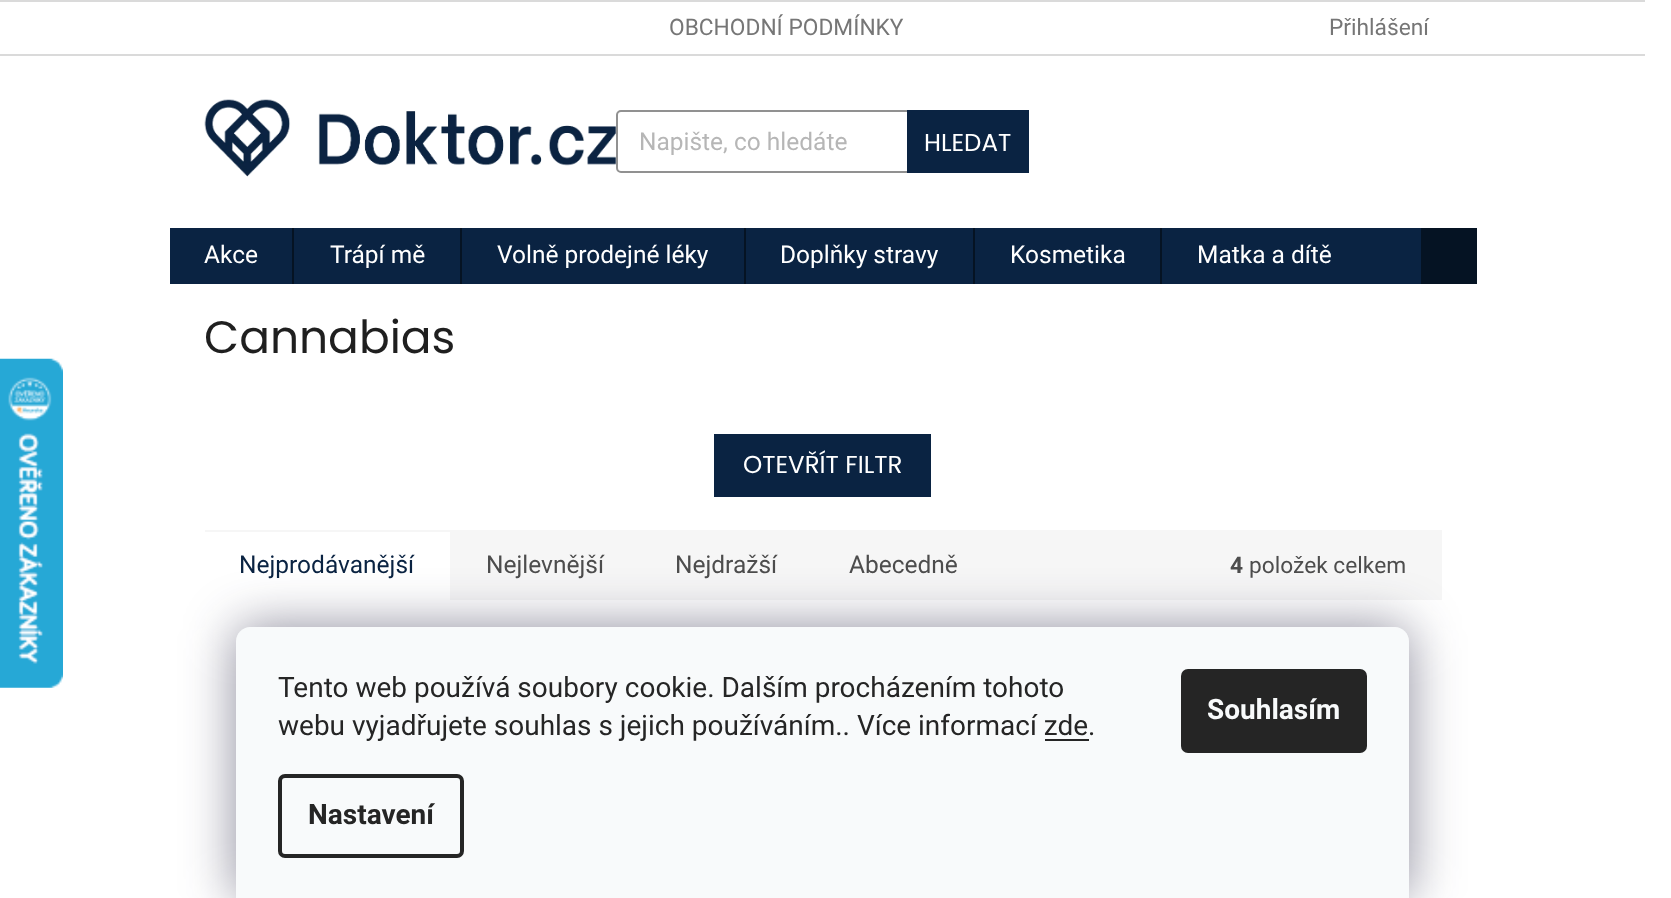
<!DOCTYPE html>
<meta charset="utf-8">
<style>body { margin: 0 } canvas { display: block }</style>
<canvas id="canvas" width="1671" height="898"></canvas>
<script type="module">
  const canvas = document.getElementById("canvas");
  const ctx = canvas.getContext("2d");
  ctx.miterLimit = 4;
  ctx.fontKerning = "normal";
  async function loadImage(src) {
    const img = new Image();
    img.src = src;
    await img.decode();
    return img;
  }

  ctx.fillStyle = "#ffffff";
  ctx.fillRect(0, 0, 1671, 898);
  ctx.drawImage(await loadImage("img1.png"), 0, 358, 63, 330);
  ctx.fillStyle = "#dadada";
  ctx.fillRect(0, 0, 1645, 2);
  ctx.fillRect(0, 54, 1645, 2);
  ctx.font = "22.75px Roboto";
  ctx.fillStyle = "#767676";
  ctx.fillText("OBCHODNÍ PODMÍNKY", 669, 35);
  ctx.fillText("Přihlášení", 1329, 35);
  ctx.drawImage(await loadImage("img2.png"), 204, 99, 412, 78);
  ctx.beginPath();
  ctx.roundRect(617, 111, 411, 61, 4);
  ctx.strokeStyle = "#919191";
  ctx.lineWidth = 2;
  ctx.stroke();
  ctx.font = "24.5px Roboto";
  ctx.fillStyle = "#b6b6b6";
  ctx.fillText("Napište, co hledáte", 639, 150);
  ctx.fillStyle = "#0a2342";
  ctx.fillRect(907, 110, 122, 63);
  ctx.font = "24.5px Poppins";
  ctx.fillStyle = "#ffffff";
  ctx.fillText("HLEDAT", 924, 151);
  ctx.fillStyle = "#0a2342";
  ctx.fillRect(170, 228, 1251, 56);
  ctx.font = "24.5px Roboto";
  ctx.fillStyle = "#ffffff";
  ctx.fillText("Akce", 204, 263);
  ctx.fillStyle = "#051323";
  ctx.fillRect(292, 228, 2, 56);
  ctx.fillStyle = "#ffffff";
  ctx.fillText("Trápí mě", 330, 263);
  ctx.fillStyle = "#051323";
  ctx.fillRect(460, 228, 2, 56);
  ctx.fillStyle = "#ffffff";
  ctx.fillText("Volně prodejné léky", 497, 263);
  ctx.fillStyle = "#051323";
  ctx.fillRect(744, 228, 2, 56);
  ctx.fillStyle = "#ffffff";
  ctx.fillText("Doplňky stravy", 780, 263);
  ctx.fillStyle = "#051323";
  ctx.fillRect(973, 228, 2, 56);
  ctx.fillStyle = "#ffffff";
  ctx.fillText("Kosmetika", 1010, 263);
  ctx.fillStyle = "#051323";
  ctx.fillRect(1160, 228, 2, 56);
  ctx.fillStyle = "#ffffff";
  ctx.fillText("Matka a dítě", 1197, 263);
  ctx.fillStyle = "#051323";
  ctx.fillRect(1421, 228, 56, 56);
  ctx.font = "45.5px Poppins";
  ctx.fillStyle = "#1f1f1f";
  ctx.fillText("Cannabias", 204, 353);
  ctx.fillStyle = "#0a2342";
  ctx.fillRect(714, 434, 217, 63);
  ctx.font = "24.5px Poppins";
  ctx.fillStyle = "#ffffff";
  ctx.fillText("OTEVŘÍT FILTR", 743, 473);
  ctx.fillStyle = "#f6f6f6";
  ctx.fillRect(205, 530, 1237, 70);
  ctx.fillStyle = "#ffffff";
  ctx.fillRect(205, 532, 245, 68);
  ctx.font = "24.5px Roboto";
  ctx.fillStyle = "#0a2342";
  ctx.fillText("Nejprodávanější", 239, 573);
  ctx.fillStyle = "#4d4d4d";
  ctx.fillText("Nejlevnější", 486, 573);
  ctx.fillText("Nejdražší", 675, 573);
  ctx.fillText("Abecedně", 849, 573);
  ctx.font = "bold 22.75px Roboto";
  ctx.fillText("4", 1230, 573);
  ctx.font = "22.75px Roboto";
  ctx.fillText("položek celkem", 1249, 573);
  ctx.fillStyle = "rgba(27, 25, 57, 0.5)";
  ctx.filter = "blur(26px)";
  ctx.beginPath();
  ctx.roundRect(236, 627, 1173, 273, 14);
  ctx.fill();
  ctx.filter = "none";
  ctx.fillStyle = "#f8fafb";
  ctx.beginPath();
  ctx.moveTo(250, 627);
  ctx.lineTo(1395, 627);
  ctx.bezierCurveTo(1402.5, 627, 1409, 633.5, 1409, 641);
  ctx.lineTo(1409, 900);
  ctx.lineTo(236, 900);
  ctx.lineTo(236, 641);
  ctx.bezierCurveTo(236, 633.5, 242.5, 627, 250, 627);
  ctx.closePath();
  ctx.fill();
  ctx.font = "28px Roboto";
  ctx.fillStyle = "#252525";
  ctx.fillText("Tento web používá soubory cookie. Dalším procházením tohoto", 278, 697);
  ctx.fillText("webu vyjadřujete souhlas s jejich používáním.. Více informací zde.", 278, 735);
  ctx.fillRect(1045, 739, 44, 2);
  ctx.beginPath();
  ctx.roundRect(280, 776, 182, 80, 5);
  ctx.strokeStyle = "#252525";
  ctx.lineWidth = 4;
  ctx.stroke();
  ctx.font = "bold 28px Roboto";
  ctx.fillText("Nastavení", 308, 824);
  ctx.beginPath();
  ctx.roundRect(1181, 669, 186, 84, 7);
  ctx.fill();
  ctx.fillStyle = "#f8fafb";
  ctx.fillText("Souhlasím", 1207, 719);
</script>
